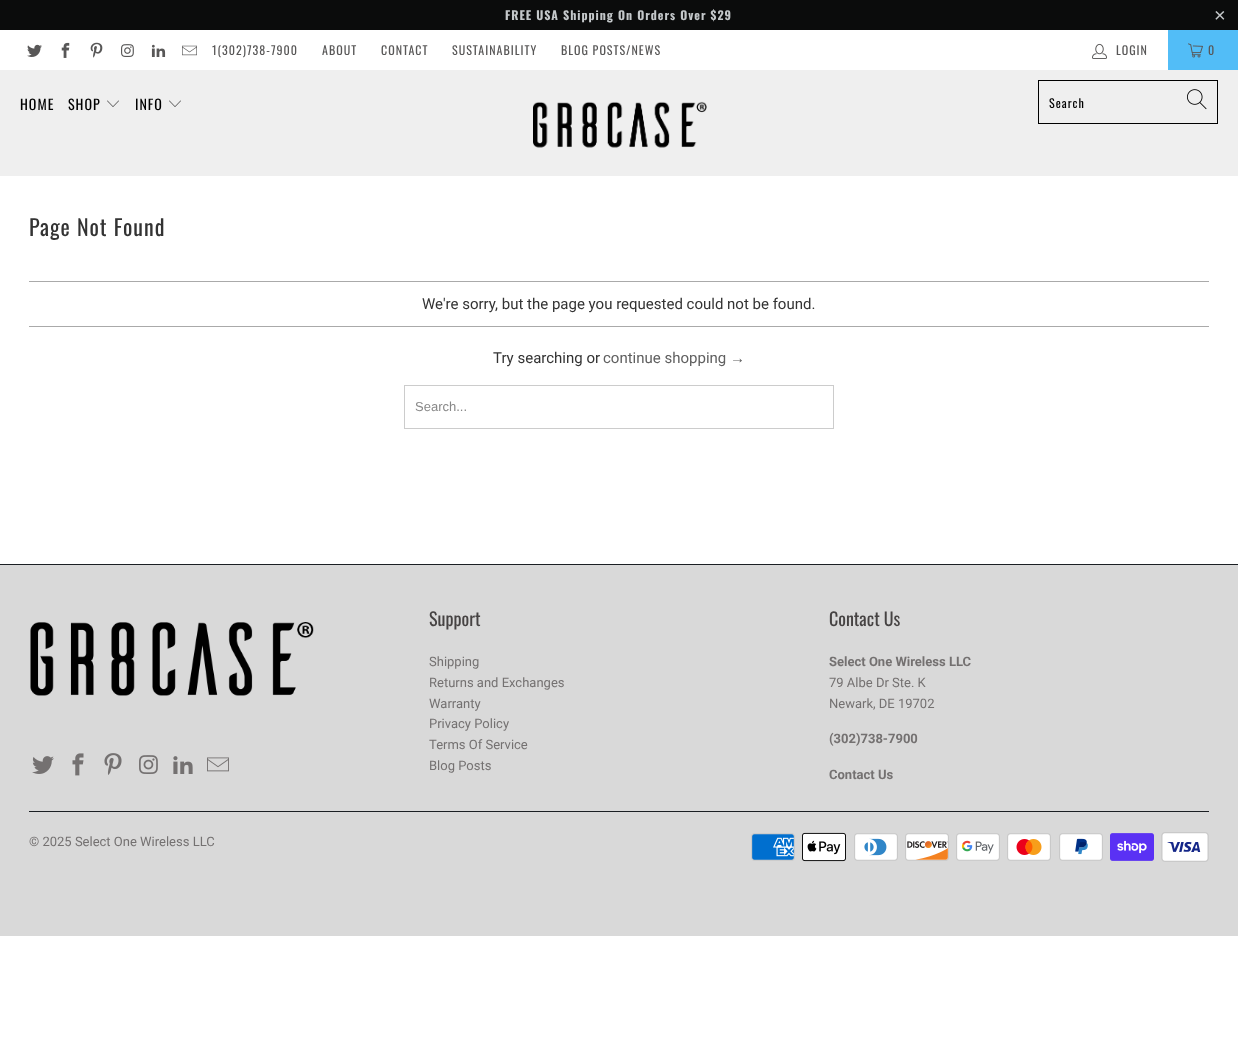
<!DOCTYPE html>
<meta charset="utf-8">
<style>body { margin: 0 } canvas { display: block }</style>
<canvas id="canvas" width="1238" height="1038"></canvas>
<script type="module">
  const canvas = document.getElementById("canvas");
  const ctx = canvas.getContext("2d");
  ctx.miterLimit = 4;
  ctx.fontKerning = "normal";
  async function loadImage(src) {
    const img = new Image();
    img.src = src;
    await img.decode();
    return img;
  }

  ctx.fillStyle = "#ffffff";
  ctx.fillRect(0, 0, 1238, 1038);
  ctx.fillStyle = "#0b0c0c";
  ctx.fillRect(0, 0, 1238, 30);
  ctx.letterSpacing = "1px";
  ctx.font = "bold 12px Oswald";
  ctx.fillStyle = "#c4c8ca";
  ctx.fillText("FREE USA Shipping On Orders Over $29", 505, 20);
  ctx.font = "20px Liberation Sans";
  ctx.fillText("×", 1214, 22);
  ctx.drawImage(await loadImage("img1.png"), 27, 44, 15, 13);
  ctx.drawImage(await loadImage("img2.png"), 61, 42, 9, 16);
  ctx.drawImage(await loadImage("img3.png"), 90, 42, 13, 16);
  ctx.drawImage(await loadImage("img4.png"), 121, 44, 13, 13);
  ctx.drawImage(await loadImage("img5.png"), 151, 44, 15, 13);
  ctx.drawImage(await loadImage("img6.png"), 182, 45, 15, 11);
  ctx.font = "12px Oswald";
  ctx.fillStyle = "#585757";
  ctx.fillText("1(302)738-7900", 212, 55);
  ctx.fillText("ABOUT", 322, 55);
  ctx.fillText("CONTACT", 381, 55);
  ctx.fillText("SUSTAINABILITY", 452, 55);
  ctx.fillText("BLOG POSTS/NEWS", 561, 55);
  ctx.drawImage(await loadImage("img7.png"), 1092, 43, 15, 16);
  ctx.fillText("LOGIN", 1116, 55);
  ctx.fillStyle = "#52bdf7";
  ctx.fillRect(1168, 30, 70, 40);
  ctx.drawImage(await loadImage("img8.png"), 1188, 43, 15, 15);
  ctx.fillStyle = "#585757";
  ctx.fillText("0", 1208, 55);
  ctx.fillStyle = "#efefef";
  ctx.fillRect(0, 70, 1238, 106);
  ctx.font = "14px Oswald";
  ctx.fillStyle = "#000000";
  ctx.fillText("HOME", 20, 110);
  ctx.fillText("SHOP", 68, 110);
  ctx.drawImage(await loadImage("img9.png"), 107, 100, 12, 7);
  ctx.fillText("INFO", 135, 110);
  ctx.drawImage(await loadImage("img9.png"), 169, 100, 12, 7);
  ctx.drawImage(await loadImage("img10.png"), 533, 101, 174, 47);
  ctx.strokeStyle = "#000000";
  ctx.strokeRect(1038.5, 80.5, 179, 43);
  ctx.font = "12px Oswald";
  ctx.fillText("Search", 1049, 108);
  ctx.drawImage(await loadImage("img11.png"), 1187, 89, 20, 21);
  ctx.font = "22px Oswald";
  ctx.fillStyle = "#333333";
  ctx.fillText("Page Not Found", 29, 236);
  ctx.fillStyle = "#aaaaaa";
  ctx.fillRect(29, 281, 1180, 1);
  ctx.fillRect(29, 326, 1180, 1);
  ctx.letterSpacing = "0px";
  ctx.font = "15px Roboto";
  ctx.fillStyle = "#333333";
  ctx.fillText("We're sorry, but the page you requested could not be found.", 422, 309);
  ctx.fillText("Try searching or", 493, 363);
  ctx.fillStyle = "#606060";
  ctx.fillText("continue shopping", 603, 363);
  ctx.font = "15px Liberation Sans";
  ctx.fillText("→", 730, 363);
  ctx.strokeStyle = "#cccccc";
  ctx.strokeRect(404.5, 385.5, 429, 43);
  ctx.font = "13px Liberation Sans";
  ctx.fillStyle = "#888888";
  ctx.fillText("Search...", 415, 411);
  ctx.fillStyle = "#d9d9d9";
  ctx.fillRect(0, 565, 1238, 371);
  ctx.fillStyle = "#1b1f23";
  ctx.fillRect(0, 564, 1238, 1);
  ctx.drawImage(await loadImage("img12.png"), 30, 622, 284, 74);
  ctx.drawImage(await loadImage("img13.png"), 32, 756, 22, 18);
  ctx.drawImage(await loadImage("img14.png"), 72, 753, 12, 23);
  ctx.drawImage(await loadImage("img15.png"), 104, 753, 18, 22);
  ctx.drawImage(await loadImage("img16.png"), 139, 755, 19, 19);
  ctx.drawImage(await loadImage("img17.png"), 173, 756, 20, 18);
  ctx.drawImage(await loadImage("img18.png"), 207, 757, 22, 15);
  ctx.font = "18px Oswald";
  ctx.fillStyle = "#464343";
  ctx.fillText("Support", 429, 626);
  ctx.font = "13px Roboto";
  ctx.fillStyle = "#747171";
  ctx.fillText("Shipping", 429, 666);
  ctx.fillText("Returns and Exchanges", 429, 687);
  ctx.fillText("Warranty", 429, 708);
  ctx.fillText("Privacy Policy", 429, 728);
  ctx.fillText("Terms Of Service", 429, 749);
  ctx.fillText("Blog Posts", 429, 770);
  ctx.font = "18px Oswald";
  ctx.fillStyle = "#464343";
  ctx.fillText("Contact Us", 829, 626);
  ctx.font = "bold 13px Roboto";
  ctx.fillStyle = "#747171";
  ctx.fillText("Select One Wireless LLC", 829, 666);
  ctx.font = "13px Roboto";
  ctx.fillText("79 Albe Dr Ste. K", 829, 687);
  ctx.fillText("Newark, DE 19702", 829, 708);
  ctx.font = "bold 13px Roboto";
  ctx.fillText("(302)738-7900", 829, 743);
  ctx.fillText("Contact Us", 829, 779);
  ctx.fillStyle = "#1b1f23";
  ctx.fillRect(29, 811, 1180, 1);
  ctx.font = "13px Roboto";
  ctx.fillStyle = "#747171";
  ctx.fillText("© 2025 Select One Wireless LLC", 29, 846);
  ctx.drawImage(await loadImage("img19.png"), 751, 833, 44, 28);
  ctx.drawImage(await loadImage("img20.png"), 802, 832, 44, 30);
  ctx.drawImage(await loadImage("img21.png"), 854, 833, 44, 28);
  ctx.drawImage(await loadImage("img22.png"), 905, 833, 44, 28);
  ctx.drawImage(await loadImage("img23.png"), 956, 833, 44, 28);
  ctx.drawImage(await loadImage("img24.png"), 1007, 833, 44, 28);
  ctx.drawImage(await loadImage("img25.png"), 1059, 833, 44, 28);
  ctx.drawImage(await loadImage("img26.png"), 1110, 833, 44, 28);
  ctx.drawImage(await loadImage("img27.png"), 1161, 832, 48, 30);
</script>
